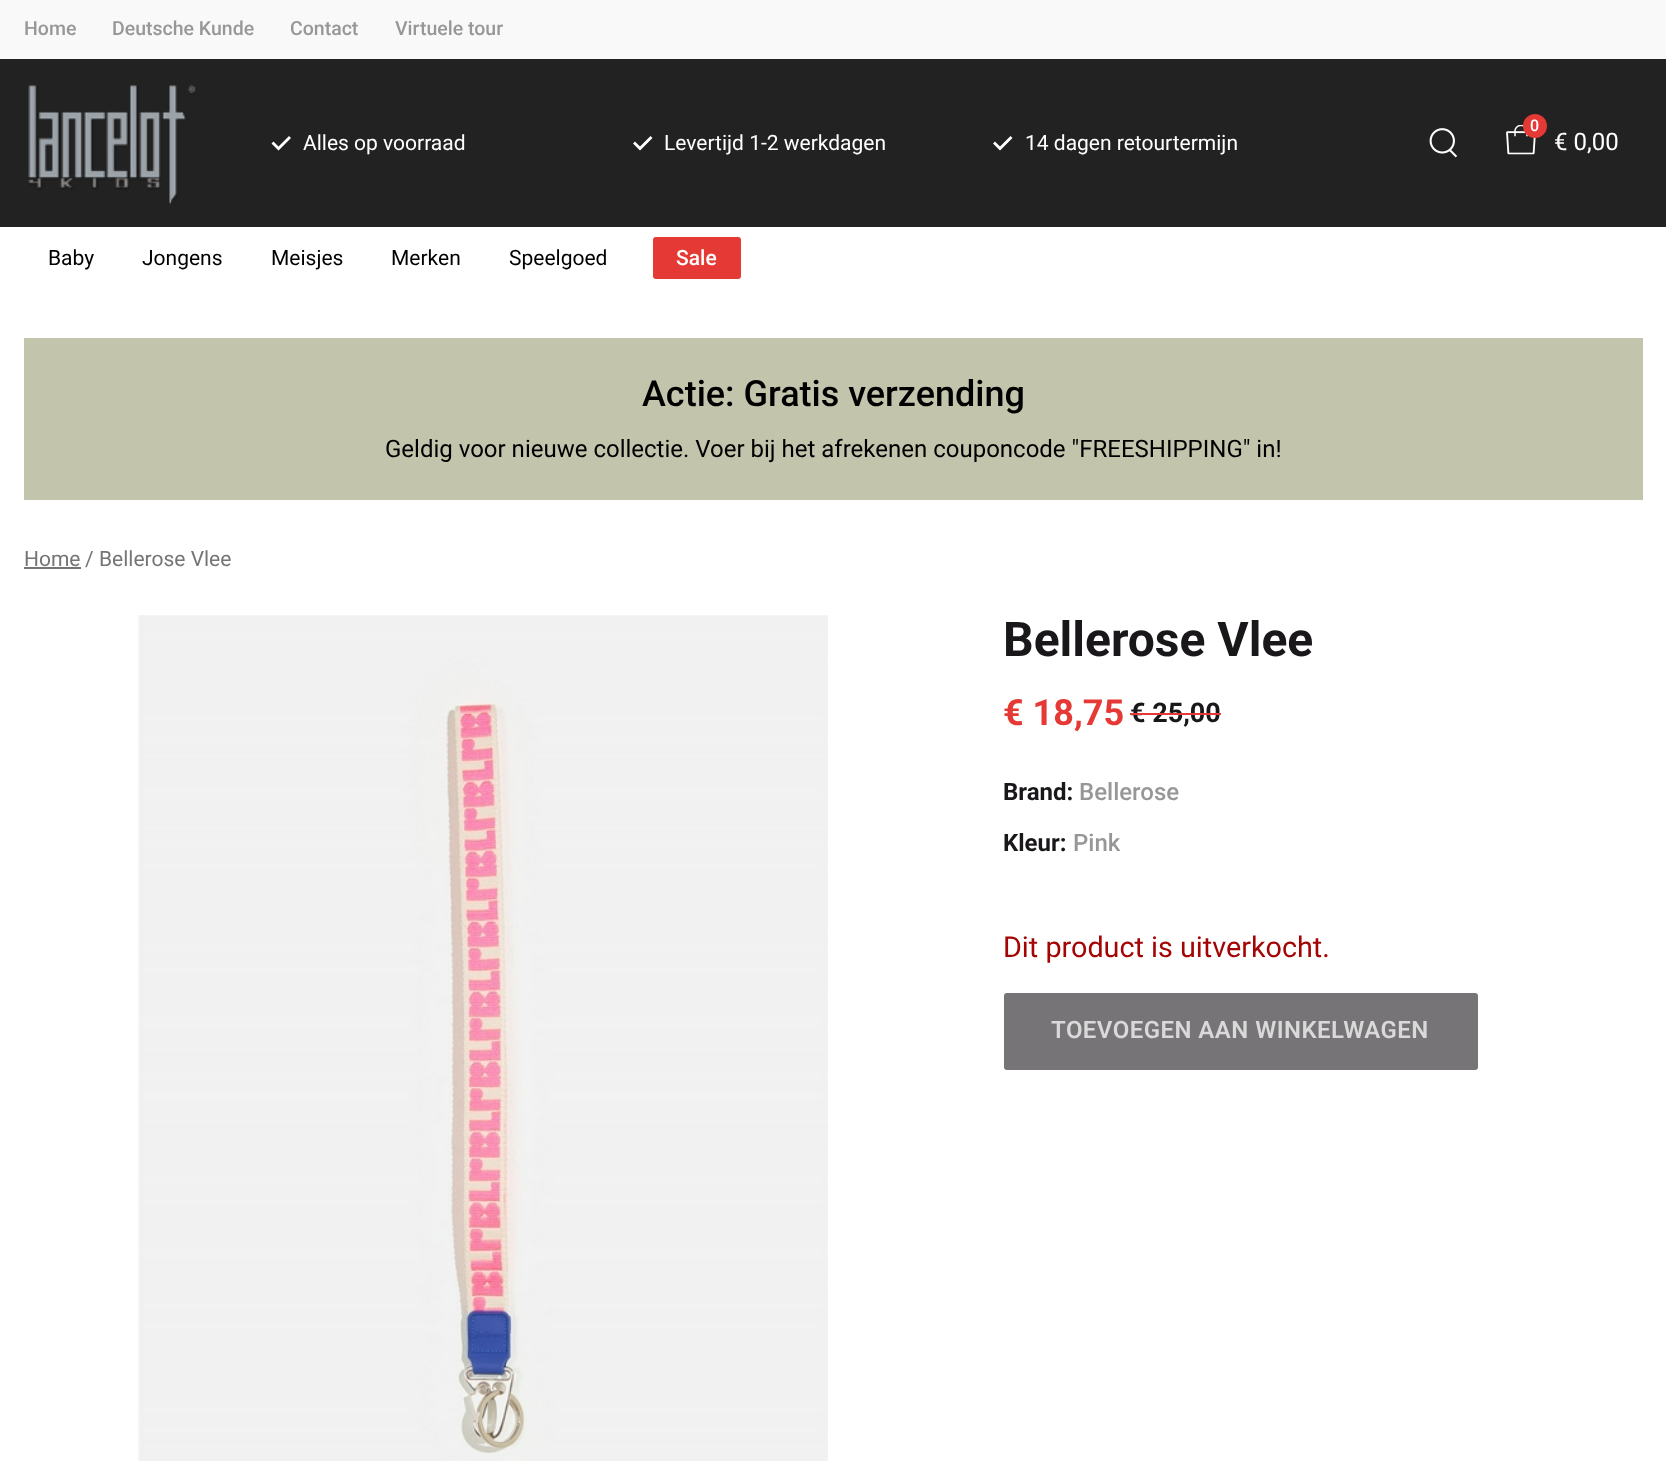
<!DOCTYPE html>
<meta charset="utf-8">
<style>body { margin: 0 } canvas { display: block }</style>
<canvas id="canvas" width="1666" height="1461"></canvas>
<script type="module">
  const canvas = document.getElementById("canvas");
  const ctx = canvas.getContext("2d");
  ctx.miterLimit = 4;
  ctx.fontKerning = "normal";
  async function loadImage(src) {
    const img = new Image();
    img.src = src;
    await img.decode();
    return img;
  }

  ctx.fillStyle = "#ffffff";
  ctx.fillRect(0, 0, 1666, 1461);
  ctx.fillStyle = "#f9f9f9";
  ctx.fillRect(0, 0, 1666, 59);
  ctx.font = "500 19.5px Roboto";
  ctx.fillStyle = "#979797";
  ctx.fillText("Home", 24, 35);
  ctx.fillText("Deutsche Kunde", 112, 35);
  ctx.fillText("Contact", 290, 35);
  ctx.fillText("Virtuele tour", 395, 35);
  ctx.fillStyle = "#222222";
  ctx.fillRect(0, 59, 1666, 168);
  ctx.drawImage(await loadImage("img1.png"), 28, 85, 168, 120);
  ctx.fillStyle = "#ffffff";
  ctx.beginPath();
  ctx.moveTo(273.5, 141.5);
  ctx.lineTo(271.5, 143.5);
  ctx.lineTo(278.5, 150.5);
  ctx.lineTo(291, 138);
  ctx.lineTo(289, 136);
  ctx.lineTo(278.5, 146.5);
  ctx.closePath();
  ctx.fill();
  ctx.font = "21px Roboto";
  ctx.fillText("Alles op voorraad", 303, 150);
  ctx.beginPath();
  ctx.moveTo(635, 141.5);
  ctx.lineTo(633, 143.5);
  ctx.lineTo(640, 150.5);
  ctx.lineTo(652.5, 138);
  ctx.lineTo(650.5, 136);
  ctx.lineTo(640, 146.5);
  ctx.closePath();
  ctx.fill();
  ctx.fillText("Levertijd 1-2 werkdagen", 664, 150);
  ctx.beginPath();
  ctx.moveTo(995, 141.5);
  ctx.lineTo(993, 143.5);
  ctx.lineTo(1000, 150.5);
  ctx.lineTo(1012.5, 138);
  ctx.lineTo(1010.5, 136);
  ctx.lineTo(1000, 146.5);
  ctx.closePath();
  ctx.fill();
  ctx.fillText("14 dagen retourtermijn", 1025, 150);
  ctx.drawImage(await loadImage("img2.png"), 1429, 128, 29, 30);
  ctx.drawImage(await loadImage("img3.png"), 1506, 125, 30, 30);
  ctx.fillStyle = "#e53935";
  ctx.beginPath();
  ctx.arc(1535, 126, 12, 0, Math.PI * 2);
  ctx.fill();
  ctx.font = "500 16px Roboto";
  ctx.fillStyle = "#ffffff";
  ctx.fillText("0", 1530, 131);
  ctx.font = "24px Roboto";
  ctx.fillText("€ 0,00", 1554, 150);
  ctx.font = "21px Roboto";
  ctx.fillStyle = "#000000";
  ctx.fillText("Baby", 48, 265);
  ctx.fillText("Jongens", 142, 265);
  ctx.fillText("Meisjes", 271, 265);
  ctx.fillText("Merken", 391, 265);
  ctx.fillText("Speelgoed", 509, 265);
  ctx.fillStyle = "#e53935";
  ctx.beginPath();
  ctx.roundRect(653, 237, 88, 42, 3);
  ctx.fill();
  ctx.font = "500 21px Roboto";
  ctx.fillStyle = "#ffffff";
  ctx.fillText("Sale", 676, 265);
  ctx.fillStyle = "#c2c4ab";
  ctx.fillRect(24, 338, 1619, 162);
  ctx.font = "500 36px Roboto";
  ctx.fillStyle = "#000000";
  ctx.fillText("Actie: Gratis verzending", 642, 406);
  ctx.font = "24px Roboto";
  ctx.fillText("Geldig voor nieuwe collectie. Voer bij het afrekenen couponcode \"FREESHIPPING\" in!", 385, 457);
  ctx.font = "21px Roboto";
  ctx.fillStyle = "#767476";
  ctx.fillText("Home", 24, 566);
  ctx.fillRect(24, 567, 57, 2);
  ctx.fillText("/", 85, 566);
  ctx.fillText("Bellerose Vlee", 99, 566);
  ctx.drawImage(await loadImage("img4.png"), 138, 615, 690, 846);
  ctx.font = "bold 48px Roboto";
  ctx.fillStyle = "#1a171b";
  ctx.fillText("Bellerose Vlee", 1003, 656);
  ctx.font = "bold 36px Roboto";
  ctx.fillStyle = "#e53935";
  ctx.fillText("€ 18,75", 1003, 725);
  ctx.font = "bold 27px Roboto";
  ctx.fillStyle = "#1a171b";
  ctx.fillText("€ 25,00", 1130, 722);
  ctx.fillStyle = "#e53935";
  ctx.fillRect(1130, 713, 91, 2);
  ctx.font = "bold 24px Roboto";
  ctx.fillStyle = "#1a171b";
  ctx.fillText("Brand:", 1003, 800);
  ctx.font = "500 24px Roboto";
  ctx.fillStyle = "#979797";
  ctx.fillText("Bellerose", 1079, 800);
  ctx.font = "bold 24px Roboto";
  ctx.fillStyle = "#1a171b";
  ctx.fillText("Kleur:", 1003, 851);
  ctx.font = "500 24px Roboto";
  ctx.fillStyle = "#979797";
  ctx.fillText("Pink", 1073, 851);
  ctx.font = "28.75px Roboto";
  ctx.fillStyle = "#a30404";
  ctx.fillText("Dit product is uitverkocht.", 1003, 957);
  ctx.fillStyle = "#767476";
  ctx.beginPath();
  ctx.roundRect(1004, 993, 474, 77, 3);
  ctx.fill();
  ctx.letterSpacing = "0.45px";
  ctx.font = "600 24px Roboto";
  ctx.fillStyle = "#d9d9d9";
  ctx.fillText("TOEVOEGEN AAN WINKELWAGEN", 1051, 1038);
</script>
